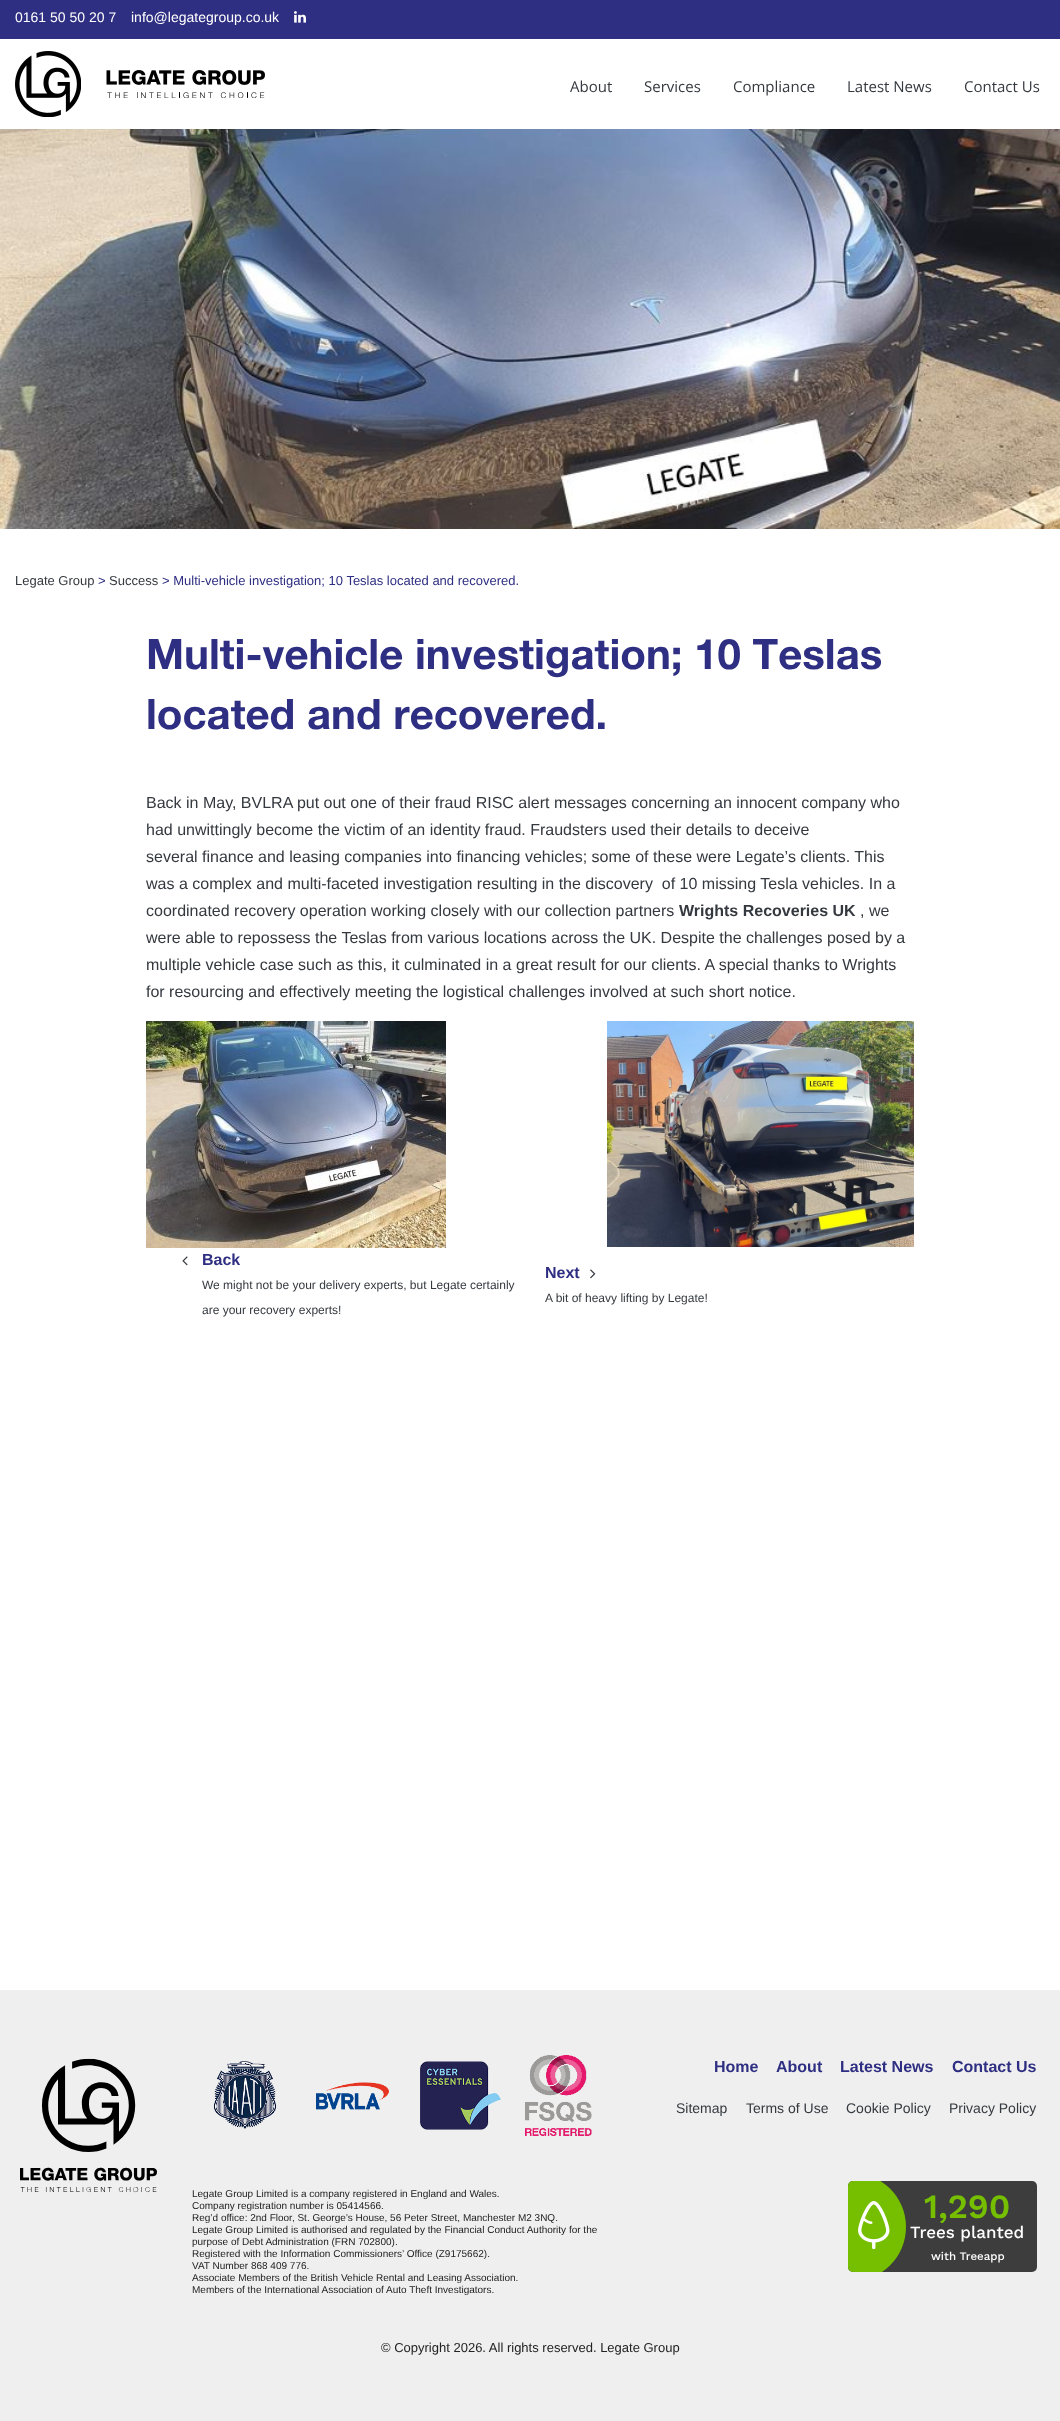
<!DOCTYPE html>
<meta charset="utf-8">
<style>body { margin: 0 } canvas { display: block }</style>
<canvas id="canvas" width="1060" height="2421"></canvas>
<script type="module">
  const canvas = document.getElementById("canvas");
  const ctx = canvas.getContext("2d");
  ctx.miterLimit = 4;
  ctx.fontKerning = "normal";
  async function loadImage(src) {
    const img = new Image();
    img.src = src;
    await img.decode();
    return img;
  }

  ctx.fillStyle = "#ffffff";
  ctx.fillRect(0, 0, 1060, 2421);
  ctx.fillStyle = "#2e2e82";
  ctx.fillRect(0, 0, 1060, 39);
  ctx.font = "14px Liberation Sans";
  ctx.fillStyle = "#ffffff";
  ctx.fillText("0161 50 50 20 7", 15, 22);
  ctx.fillText("info@legategroup.co.uk", 131, 22);
  ctx.drawImage(await loadImage("img1.png"), 294, 11, 12, 12);
  ctx.drawImage(await loadImage("img2.png"), 15, 51, 250, 66);
  ctx.font = "15px Open Sans";
  ctx.fillStyle = "#34393f";
  ctx.fillText("About", 570, 92);
  ctx.fillText("Services", 644, 92);
  ctx.fillText("Compliance", 733, 92);
  ctx.fillText("Latest News", 847, 92);
  ctx.fillText("Contact Us", 964, 92);
  ctx.drawImage(await loadImage("img3.png"), 0, 129, 1060, 400);
  ctx.font = "13px Liberation Sans";
  ctx.fillText("Legate Group", 15, 585);
  ctx.fillStyle = "#2e2e82";
  ctx.fillText(">", 98, 585);
  ctx.fillStyle = "#34393f";
  ctx.fillText("Success", 109, 585);
  ctx.fillStyle = "#2e2e82";
  ctx.fillText("> Multi-vehicle investigation; 10 Teslas located and recovered.", 162, 585);
  ctx.font = "bold 42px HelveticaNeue";
  ctx.fillText("Multi-vehicle investigation; 10 Teslas", 146, 669);
  ctx.fillText("located and recovered.", 146, 729);
  ctx.font = "16px Liberation Sans";
  ctx.fillStyle = "#34393f";
  ctx.fillText("Back in May, BVLRA put out one of their fraud RISC alert messages concerning an innocent company who", 146, 808);
  ctx.fillText("had unwittingly become the victim of an identity fraud. Fraudsters used their details to deceive", 146, 835);
  ctx.fillText("several finance and leasing companies into financing vehicles; some of these were Legate’s clients. This", 146, 862);
  ctx.fillText("was a complex and multi-faceted investigation resulting in the discovery  of 10 missing Tesla vehicles. In a", 146, 889);
  ctx.fillText("coordinated recovery operation working closely with our collection partners", 146, 916);
  ctx.font = "bold 16px Liberation Sans";
  ctx.fillText("Wrights Recoveries UK", 679, 916);
  ctx.font = "16px Liberation Sans";
  ctx.fillText(", we", 860, 916);
  ctx.fillText("were able to repossess the Teslas from various locations across the UK. Despite the challenges posed by a", 146, 943);
  ctx.fillText("multiple vehicle case such as this, it culminated in a great result for our clients. A special thanks to Wrights", 146, 970);
  ctx.fillText("for resourcing and effectively meeting the logistical challenges involved at such short notice.", 146, 997);
  ctx.drawImage(await loadImage("img4.png"), 146, 1021, 300, 227);
  ctx.drawImage(await loadImage("img5.png"), 607, 1021, 307, 226);
  ctx.drawImage(await loadImage("img6.png"), 182, 1256, 6, 10);
  ctx.font = "bold 16px Liberation Sans";
  ctx.fillStyle = "#2e2e82";
  ctx.fillText("Back", 202, 1265);
  ctx.font = "12px Liberation Sans";
  ctx.fillStyle = "#34393f";
  ctx.fillText("We might not be your delivery experts, but Legate certainly", 202, 1289);
  ctx.fillText("are your recovery experts!", 202, 1314);
  ctx.font = "bold 16px Liberation Sans";
  ctx.fillStyle = "#2e2e82";
  ctx.fillText("Next", 545, 1278);
  ctx.font = "12px Liberation Sans";
  ctx.fillStyle = "#34393f";
  ctx.fillText("A bit of heavy lifting by Legate!", 545, 1302);
  ctx.drawImage(await loadImage("img7.png"), 590, 1269, 6, 10);
  ctx.fillStyle = "#efefef";
  ctx.fillRect(0, 1990, 1060, 431);
  ctx.drawImage(await loadImage("img8.png"), 20, 2058, 137, 135);
  ctx.drawImage(await loadImage("img9.png"), 213, 2061, 64, 68);
  ctx.drawImage(await loadImage("img10.png"), 316, 2082, 73, 28);
  ctx.drawImage(await loadImage("img11.png"), 420, 2061, 81, 69);
  ctx.drawImage(await loadImage("img12.png"), 525, 2055, 67, 81);
  ctx.font = "10px Liberation Sans";
  ctx.fillStyle = "#222222";
  ctx.fillText("Legate Group Limited is a company registered in England and Wales.", 192, 2197);
  ctx.fillText("Company registration number is 05414566.", 192, 2209);
  ctx.fillText("Reg’d office: 2nd Floor, St. George’s House, 56 Peter Street, Manchester M2 3NQ.", 192, 2221);
  ctx.fillText("Legate Group Limited is authorised and regulated by the Financial Conduct Authority for the", 192, 2233);
  ctx.fillText("purpose of Debt Administration (FRN 702800).", 192, 2245);
  ctx.fillText("Registered with the Information Commissioners’ Office (Z9175662).", 192, 2257);
  ctx.fillText("VAT Number 868 409 776.", 192, 2269);
  ctx.fillText("Associate Members of the British Vehicle Rental and Leasing Association.", 192, 2281);
  ctx.fillText("Members of the International Association of Auto Theft Investigators.", 192, 2293);
  ctx.font = "bold 16px Liberation Sans";
  ctx.fillStyle = "#2e2e82";
  ctx.fillText("Home", 714, 2072);
  ctx.fillText("About", 776, 2072);
  ctx.fillText("Latest News", 840, 2072);
  ctx.fillText("Contact Us", 952, 2072);
  ctx.font = "14px Liberation Sans";
  ctx.fillStyle = "#34393f";
  ctx.fillText("Sitemap", 676, 2113);
  ctx.fillText("Terms of Use", 746, 2113);
  ctx.fillText("Cookie Policy", 846, 2113);
  ctx.fillText("Privacy Policy", 949, 2113);
  ctx.fillStyle = "#3d3d3d";
  ctx.beginPath();
  ctx.roundRect(848, 2181, 189, 91, 5);
  ctx.fill();
  ctx.save();
  ctx.beginPath();
  ctx.roundRect(848, 2181, 189, 91, 5);
  ctx.clip();
  ctx.fillStyle = "#75be00";
  ctx.beginPath();
  ctx.arc(852, 2227, 54, 0, Math.PI * 2);
  ctx.fill();
  ctx.restore();
  ctx.drawImage(await loadImage("img13.png"), 858, 2201, 32, 48);
  ctx.font = "600 34px Work Sans";
  ctx.fillStyle = "#75be00";
  ctx.fillText("1,290", 924, 2218);
  ctx.font = "500 17px Work Sans";
  ctx.fillStyle = "#ffffff";
  ctx.fillText("Trees planted", 910, 2238);
  ctx.font = "500 11.5px Work Sans";
  ctx.fillText("with Treeapp", 931, 2260);
  ctx.font = "13px Liberation Sans";
  ctx.fillStyle = "#222222";
  ctx.fillText("© Copyright 2026. All rights reserved. Legate Group", 381, 2352);
</script>
